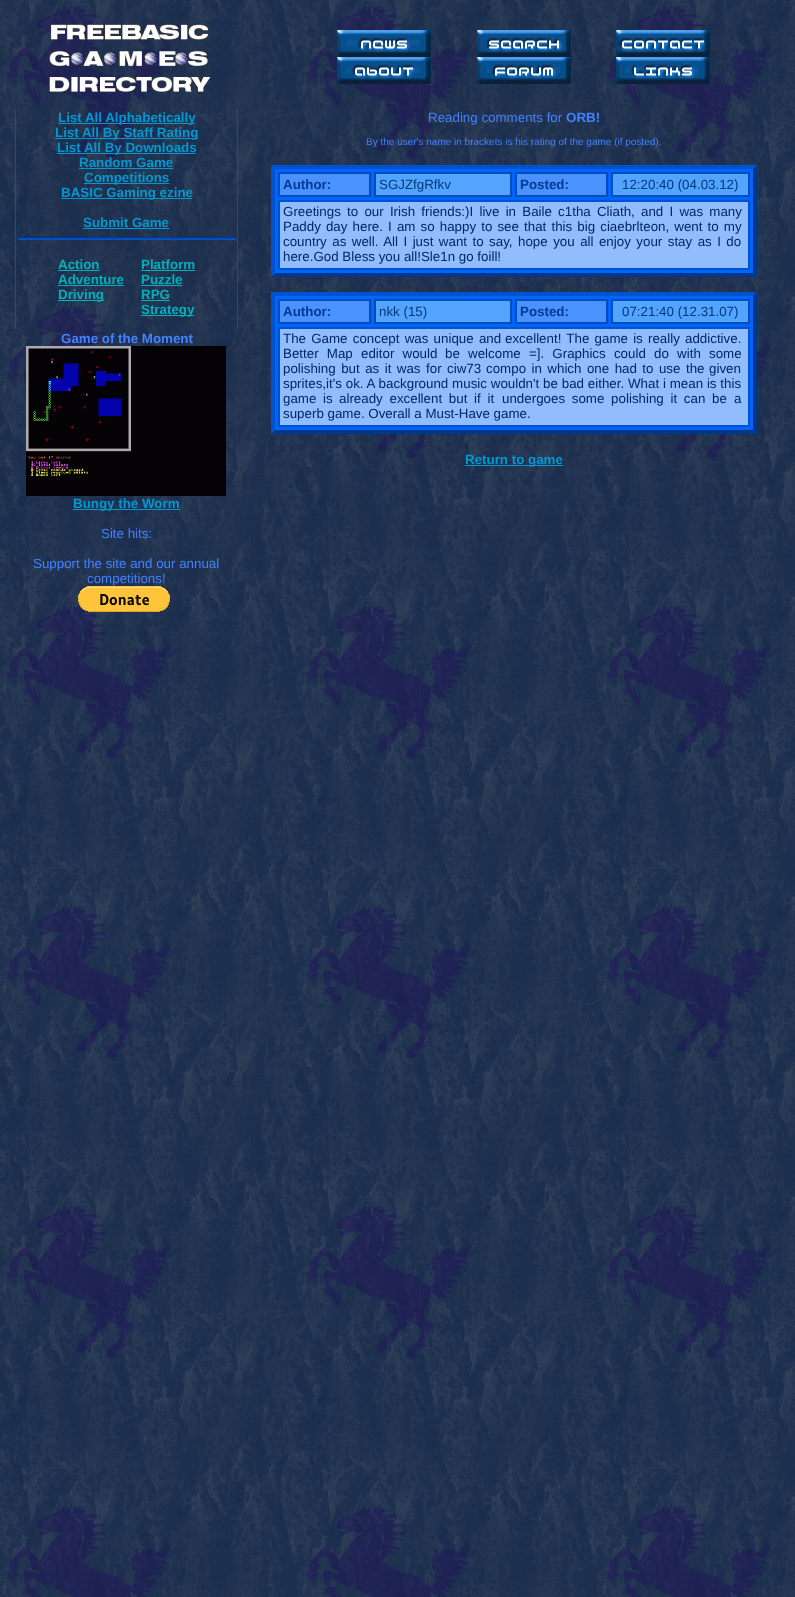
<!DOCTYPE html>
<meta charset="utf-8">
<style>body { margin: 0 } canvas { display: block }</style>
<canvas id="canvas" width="795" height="1597"></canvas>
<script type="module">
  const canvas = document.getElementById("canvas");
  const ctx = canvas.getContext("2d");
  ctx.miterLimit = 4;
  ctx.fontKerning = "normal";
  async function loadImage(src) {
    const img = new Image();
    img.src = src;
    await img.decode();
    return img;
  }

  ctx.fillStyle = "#ffffff";
  ctx.fillRect(0, 0, 795, 1597);
  ctx.drawImage(await loadImage("img1.png"), 0, 0, 795, 1597);
  ctx.drawImage(await loadImage("img2.png"), 49, 24, 162, 68);
  ctx.drawImage(await loadImage("img3.png"), 337, 30, 94, 27);
  ctx.drawImage(await loadImage("img4.png"), 337, 57, 94, 27);
  ctx.drawImage(await loadImage("img5.png"), 477, 30, 94, 27);
  ctx.drawImage(await loadImage("img6.png"), 477, 57, 94, 27);
  ctx.drawImage(await loadImage("img7.png"), 616, 30, 94, 27);
  ctx.drawImage(await loadImage("img8.png"), 616, 57, 94, 27);
  ctx.fillStyle = "#0250c4";
  ctx.fillRect(237, 109, 1, 220);
  ctx.fillRect(15, 109, 1, 220);
  ctx.fillStyle = "#0098d0";
  ctx.fillRect(58, 123, 137, 1);
  ctx.font = "bold 13.35px Liberation Sans";
  ctx.fillText("List All Alphabetically", 58, 122);
  ctx.fillRect(55, 138, 143, 1);
  ctx.fillText("List All By Staff Rating", 55, 137);
  ctx.fillRect(57, 153, 139, 1);
  ctx.fillText("List All By Downloads", 57, 152);
  ctx.fillText("Random Game", 79, 167);
  ctx.fillRect(79, 168, 94, 1);
  ctx.fillRect(84, 183, 85, 1);
  ctx.fillText("Competitions", 84, 182);
  ctx.fillRect(61, 198, 131, 1);
  ctx.fillText("BASIC Gaming ezine", 61, 197);
  ctx.fillText("Submit Game", 83, 227);
  ctx.fillRect(83, 228, 86, 1);
  ctx.fillStyle = "#0250c4";
  ctx.fillRect(17, 238, 219, 2);
  ctx.fillStyle = "#013583";
  ctx.fillRect(17, 237, 219, 1);
  ctx.fillRect(17, 237, 1, 3);
  ctx.fillStyle = "#00b1bc";
  ctx.fillText("Action", 58, 269);
  ctx.fillRect(58, 270, 42, 1);
  ctx.fillText("Adventure", 58, 284);
  ctx.fillRect(58, 285, 66, 1);
  ctx.fillRect(58, 300, 46, 1);
  ctx.fillText("Driving", 58, 299);
  ctx.fillText("Platform", 141, 269);
  ctx.fillRect(141, 270, 54, 1);
  ctx.fillText("Puzzle", 141, 284);
  ctx.fillRect(141, 285, 41, 1);
  ctx.fillText("RPG", 141, 299);
  ctx.fillRect(141, 300, 29, 1);
  ctx.fillRect(141, 315, 53, 1);
  ctx.fillText("Strategy", 141, 314);
  ctx.fillStyle = "#4381ff";
  ctx.fillText("Game of the Moment", 61, 343);
  ctx.drawImage(await loadImage("img9.png"), 26, 346, 200, 150);
  ctx.fillStyle = "#0098d0";
  ctx.fillRect(73, 509, 107, 1);
  ctx.fillText("Bungy the Worm", 73, 508);
  ctx.font = "13.35px Liberation Sans";
  ctx.fillStyle = "#4381ff";
  ctx.fillText("Site hits:", 101, 538);
  ctx.fillText("Support the site and our annual", 33, 568);
  ctx.fillText("competitions!", 87, 583);
  ctx.drawImage(await loadImage("img10.png"), 78, 586, 92, 26);
  ctx.fillText("Reading comments for", 428, 122);
  ctx.font = "bold 13.35px Liberation Sans";
  ctx.fillText("ORB!", 566, 122);
  ctx.font = "10px Liberation Sans";
  ctx.fillText("By the user's name in brackets is his rating of the game (if posted).", 366, 145);
  ctx.fillStyle = "#0264f8";
  ctx.fillRect(271, 165, 486, 112);
  ctx.fillStyle = "#0053d0";
  ctx.beginPath();
  ctx.moveTo(271, 165);
  ctx.lineTo(757, 165);
  ctx.lineTo(753, 169);
  ctx.lineTo(275, 169);
  ctx.closePath();
  ctx.fill();
  ctx.fillStyle = "#00378b";
  ctx.beginPath();
  ctx.moveTo(757, 165);
  ctx.lineTo(757, 277);
  ctx.lineTo(753, 273);
  ctx.lineTo(753, 169);
  ctx.closePath();
  ctx.fill();
  ctx.beginPath();
  ctx.moveTo(757, 277);
  ctx.lineTo(271, 277);
  ctx.lineTo(275, 273);
  ctx.lineTo(753, 273);
  ctx.closePath();
  ctx.fill();
  ctx.fillStyle = "#0053d0";
  ctx.beginPath();
  ctx.moveTo(271, 277);
  ctx.lineTo(271, 165);
  ctx.lineTo(275, 169);
  ctx.lineTo(275, 273);
  ctx.closePath();
  ctx.fill();
  ctx.fillStyle = "#4a92fe";
  ctx.beginPath();
  ctx.rect(279, 173, 91, 23);
  ctx.fill();
  ctx.strokeStyle = "#004dc0";
  ctx.lineWidth = 2;
  ctx.stroke();
  ctx.font = "bold 13.35px Liberation Sans";
  ctx.fillStyle = "#003a92";
  ctx.fillText("Author:", 283, 189);
  ctx.fillStyle = "#53a4ff";
  ctx.beginPath();
  ctx.rect(375, 173, 136, 23);
  ctx.fill();
  ctx.stroke();
  ctx.font = "13.35px Liberation Sans";
  ctx.fillStyle = "#003978";
  ctx.fillText("SGJZfgRfkv", 379, 189);
  ctx.fillStyle = "#4a92fe";
  ctx.beginPath();
  ctx.rect(516, 173, 91, 23);
  ctx.fill();
  ctx.stroke();
  ctx.font = "bold 13.35px Liberation Sans";
  ctx.fillStyle = "#003a92";
  ctx.fillText("Posted:", 520, 189);
  ctx.fillStyle = "#53a4ff";
  ctx.beginPath();
  ctx.rect(612, 173, 137, 23);
  ctx.fill();
  ctx.stroke();
  ctx.font = "13.35px Liberation Sans";
  ctx.fillStyle = "#003978";
  ctx.fillText("12:20:40 (04.03.12)", 622, 189);
  ctx.fillStyle = "#91bdff";
  ctx.beginPath();
  ctx.rect(279, 201, 470, 68);
  ctx.fill();
  ctx.strokeStyle = "#0053d0";
  ctx.stroke();
  ctx.wordSpacing = "2.5px";
  ctx.fillStyle = "#002762";
  ctx.fillText("Greetings to our Irish friends:)I live in Baile c1tha Cliath, and I was many", 283, 216);
  ctx.wordSpacing = "1.4px";
  ctx.fillText("Paddy day here. I am so happy to see that this big ciaebrlteon, went to my", 283, 231);
  ctx.wordSpacing = "1.75px";
  ctx.fillText("country as well. All I just want to say, hope you all enjoy your stay as I do", 283, 246);
  ctx.wordSpacing = "0px";
  ctx.fillText("here.God Bless you all!Sle1n go foill!", 283, 261);
  ctx.fillStyle = "#0264f8";
  ctx.fillRect(271, 292, 486, 142);
  ctx.fillStyle = "#0053d0";
  ctx.beginPath();
  ctx.moveTo(271, 292);
  ctx.lineTo(757, 292);
  ctx.lineTo(753, 296);
  ctx.lineTo(275, 296);
  ctx.closePath();
  ctx.fill();
  ctx.fillStyle = "#00378b";
  ctx.beginPath();
  ctx.moveTo(757, 292);
  ctx.lineTo(757, 434);
  ctx.lineTo(753, 430);
  ctx.lineTo(753, 296);
  ctx.closePath();
  ctx.fill();
  ctx.beginPath();
  ctx.moveTo(757, 434);
  ctx.lineTo(271, 434);
  ctx.lineTo(275, 430);
  ctx.lineTo(753, 430);
  ctx.closePath();
  ctx.fill();
  ctx.fillStyle = "#0053d0";
  ctx.beginPath();
  ctx.moveTo(271, 434);
  ctx.lineTo(271, 292);
  ctx.lineTo(275, 296);
  ctx.lineTo(275, 430);
  ctx.closePath();
  ctx.fill();
  ctx.fillStyle = "#4a92fe";
  ctx.beginPath();
  ctx.rect(279, 300, 91, 23);
  ctx.fill();
  ctx.strokeStyle = "#004dc0";
  ctx.stroke();
  ctx.font = "bold 13.35px Liberation Sans";
  ctx.fillStyle = "#003a92";
  ctx.fillText("Author:", 283, 316);
  ctx.fillStyle = "#53a4ff";
  ctx.beginPath();
  ctx.rect(375, 300, 136, 23);
  ctx.fill();
  ctx.stroke();
  ctx.font = "13.35px Liberation Sans";
  ctx.fillStyle = "#003978";
  ctx.fillText("nkk (15)", 379, 316);
  ctx.fillStyle = "#4a92fe";
  ctx.beginPath();
  ctx.rect(516, 300, 91, 23);
  ctx.fill();
  ctx.stroke();
  ctx.font = "bold 13.35px Liberation Sans";
  ctx.fillStyle = "#003a92";
  ctx.fillText("Posted:", 520, 316);
  ctx.fillStyle = "#53a4ff";
  ctx.beginPath();
  ctx.rect(612, 300, 137, 23);
  ctx.fill();
  ctx.stroke();
  ctx.font = "13.35px Liberation Sans";
  ctx.fillStyle = "#003978";
  ctx.fillText("07:21:40 (12.31.07)", 622, 316);
  ctx.fillStyle = "#91bdff";
  ctx.beginPath();
  ctx.rect(279, 328, 470, 98);
  ctx.fill();
  ctx.strokeStyle = "#0053d0";
  ctx.stroke();
  ctx.wordSpacing = "1.5px";
  ctx.fillStyle = "#002762";
  ctx.fillText("The Game concept was unique and", 283, 343);
  ctx.fillText("excellent! The game is really", 505, 343);
  ctx.wordSpacing = "0px";
  ctx.fillText("addictive.", 685, 343);
  ctx.wordSpacing = "4.5px";
  ctx.fillText("Better Map editor would", 283, 358);
  ctx.fillText("be welcome =]. Graphics could do with some", 445, 358);
  ctx.wordSpacing = "1.75px";
  ctx.fillText("polishing but as it was for ciw73", 283, 373);
  ctx.fillText("compo in which one had to use the", 486, 373);
  ctx.wordSpacing = "0px";
  ctx.fillText("given", 709, 373);
  ctx.wordSpacing = "0.1px";
  ctx.fillText("sprites,it's ok. A background music wouldn't be bad either. What i mean is this", 283, 388);
  ctx.wordSpacing = "3px";
  ctx.fillText("game is", 283, 403);
  ctx.fillText("already excellent but if it", 339, 403);
  ctx.fillText("undergoes some polishing it can be", 502, 403);
  ctx.wordSpacing = "0px";
  ctx.fillText("a", 734, 403);
  ctx.fillText("superb game. Overall a Must-Have game.", 283, 418);
  ctx.fillStyle = "#0098d0";
  ctx.fillRect(465, 465, 98, 1);
  ctx.font = "bold 13.35px Liberation Sans";
  ctx.fillText("Return to game", 465, 464);
</script>
